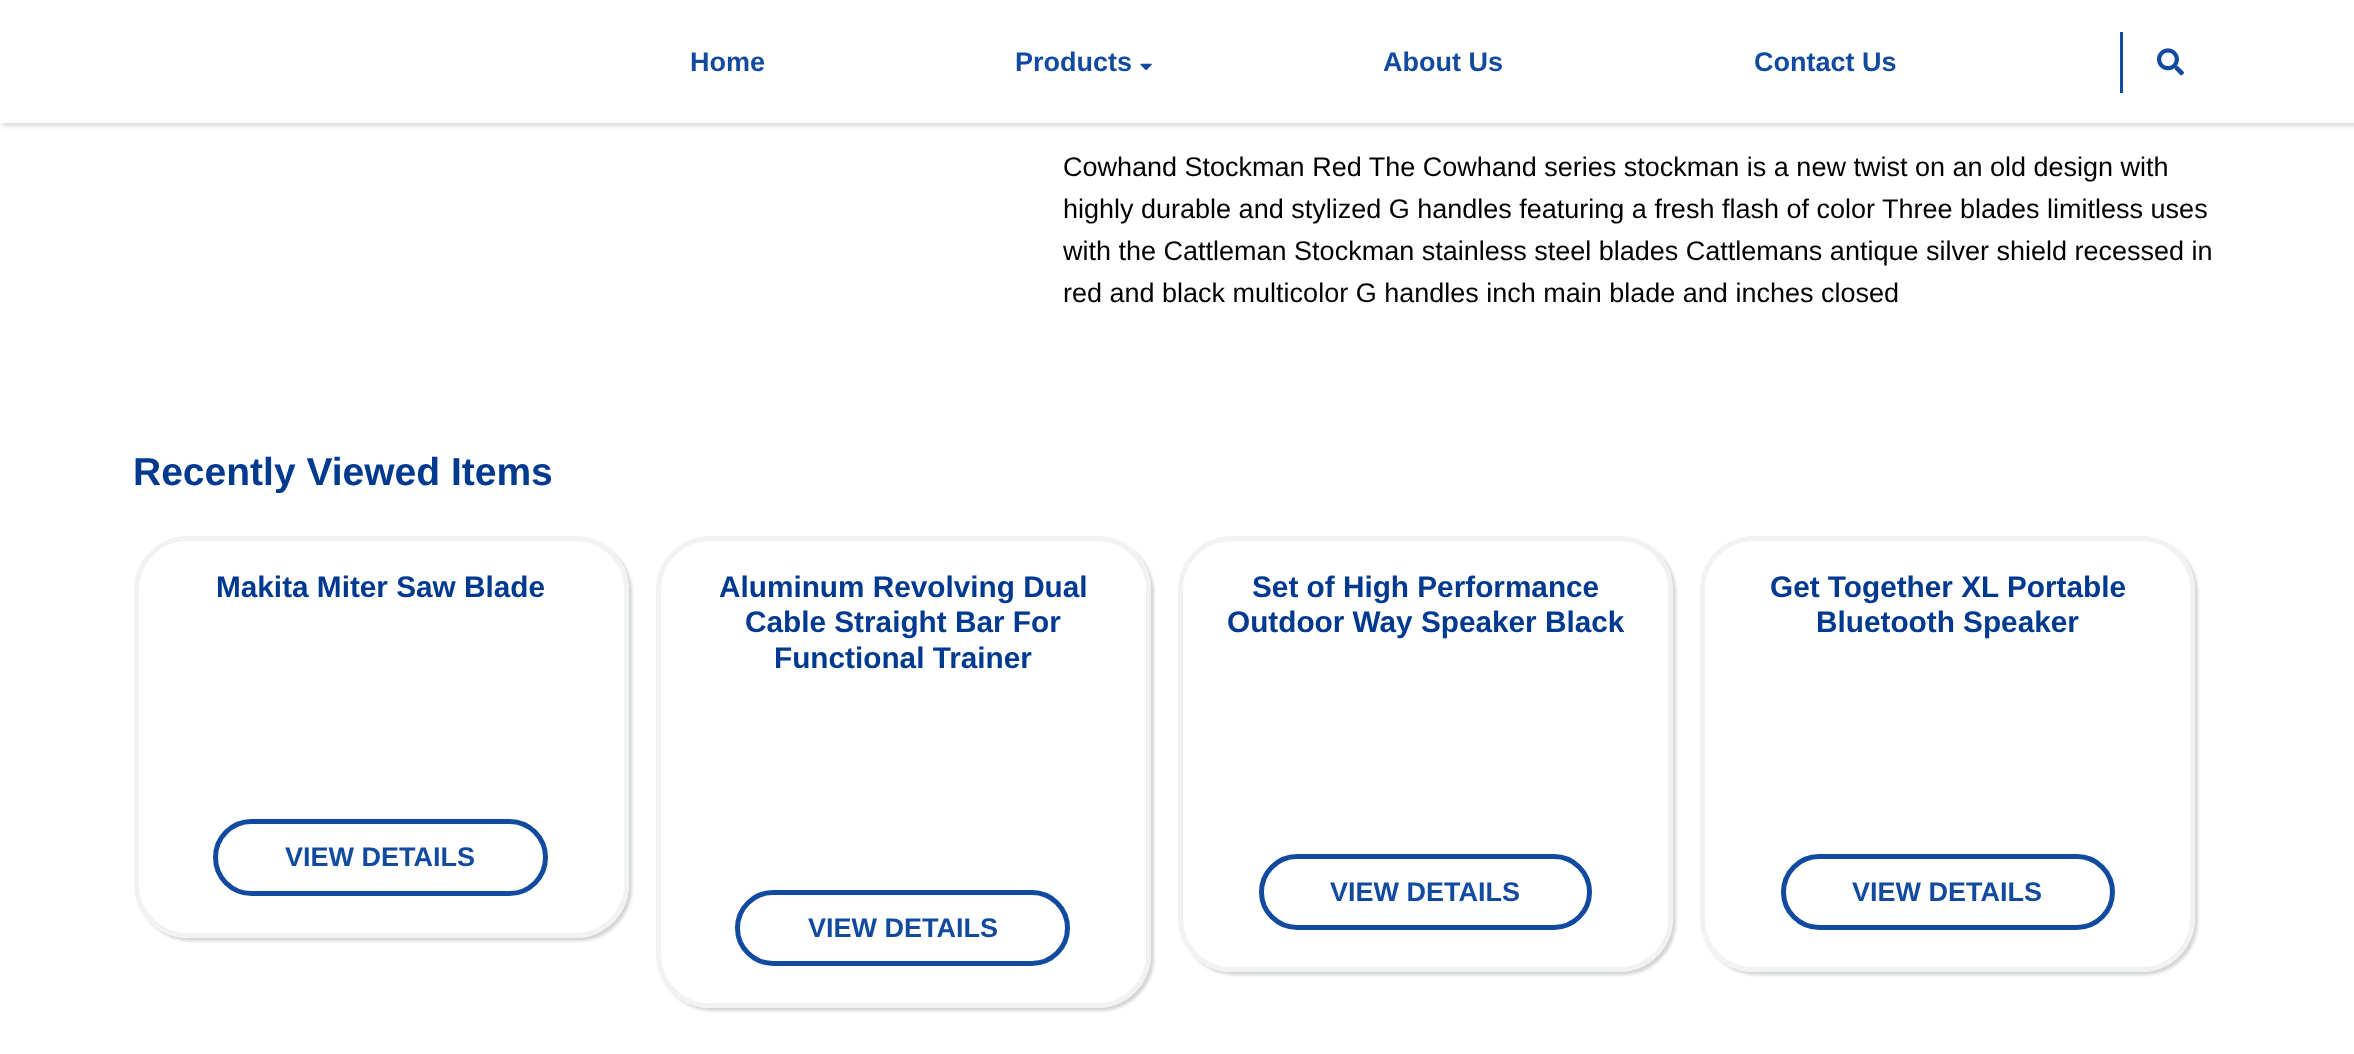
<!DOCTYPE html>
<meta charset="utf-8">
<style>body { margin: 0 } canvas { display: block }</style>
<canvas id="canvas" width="2354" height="1054"></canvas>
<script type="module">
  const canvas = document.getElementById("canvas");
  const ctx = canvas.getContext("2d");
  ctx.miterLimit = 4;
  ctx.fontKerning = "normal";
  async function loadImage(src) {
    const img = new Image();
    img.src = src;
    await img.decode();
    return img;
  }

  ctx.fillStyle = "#ffffff";
  ctx.fillRect(0, 0, 2354, 1054);
  ctx.fillStyle = "rgba(0, 0, 0, 0.15)";
  ctx.filter = "blur(2px)";
  ctx.beginPath();
  ctx.rect(2, 3, 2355, 123);
  ctx.fill();
  ctx.filter = "none";
  ctx.fillStyle = "#ffffff";
  ctx.fillRect(0, 0, 2354, 123);
  ctx.font = "bold 27px Liberation Sans";
  ctx.fillStyle = "#114a9f";
  ctx.fillText("Home", 690, 71);
  ctx.fillText("Products", 1015, 71);
  ctx.drawImage(await loadImage("img1.png"), 1140, 63, 12, 8);
  ctx.fillText("About Us", 1383, 71);
  ctx.fillText("Contact Us", 1754, 71);
  ctx.fillRect(2120, 32, 3, 61);
  ctx.drawImage(await loadImage("img2.png"), 2157, 48, 27, 28);
  ctx.font = "27px Liberation Sans";
  ctx.fillStyle = "#000000";
  ctx.fillText("Cowhand Stockman Red The Cowhand series stockman is a new twist on an old design with", 1063, 176);
  ctx.fillText("highly durable and stylized G handles featuring a fresh flash of color Three blades limitless uses", 1063, 218);
  ctx.fillText("with the Cattleman Stockman stainless steel blades Cattlemans antique silver shield recessed in", 1063, 260);
  ctx.fillText("red and black multicolor G handles inch main blade and inches closed", 1063, 302);
  ctx.font = "bold 39px Liberation Sans";
  ctx.fillStyle = "#003a90";
  ctx.fillText("Recently Viewed Items", 133, 485);
  ctx.save();
  ctx.beginPath();
  ctx.moveTo(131, 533);
  ctx.lineTo(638, 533);
  ctx.lineTo(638, 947);
  ctx.lineTo(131, 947);
  ctx.closePath();
  ctx.moveTo(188, 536);
  ctx.lineTo(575, 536);
  ctx.bezierCurveTo(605, 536, 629, 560, 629, 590);
  ctx.lineTo(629, 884);
  ctx.bezierCurveTo(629, 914, 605, 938, 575, 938);
  ctx.lineTo(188, 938);
  ctx.bezierCurveTo(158, 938, 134, 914, 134, 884);
  ctx.lineTo(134, 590);
  ctx.bezierCurveTo(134, 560, 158, 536, 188, 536);
  ctx.closePath();
  ctx.clip("evenodd");
  ctx.fillStyle = "#d3d4d4";
  ctx.filter = "blur(1.5px)";
  ctx.beginPath();
  ctx.roundRect(137, 539, 495, 402, 54);
  ctx.fill();
  ctx.filter = "none";
  ctx.restore();
  ctx.beginPath();
  ctx.roundRect(136.5, 538.5, 490, 397, 51.5);
  ctx.strokeStyle = "#f1f2f2";
  ctx.lineWidth = 5;
  ctx.stroke();
  ctx.font = "bold 29.75px Liberation Sans";
  ctx.fillText("Makita Miter Saw Blade", 216, 597);
  ctx.beginPath();
  ctx.roundRect(215.5, 821.5, 330, 72, 36);
  ctx.strokeStyle = "#114a9f";
  ctx.stroke();
  ctx.font = "bold 27px Liberation Sans";
  ctx.fillStyle = "#114a9f";
  ctx.fillText("VIEW DETAILS", 285, 866);
  ctx.save();
  ctx.beginPath();
  ctx.moveTo(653, 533);
  ctx.lineTo(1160, 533);
  ctx.lineTo(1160, 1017);
  ctx.lineTo(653, 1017);
  ctx.closePath();
  ctx.moveTo(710, 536);
  ctx.lineTo(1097, 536);
  ctx.bezierCurveTo(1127, 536, 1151, 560, 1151, 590);
  ctx.lineTo(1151, 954);
  ctx.bezierCurveTo(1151, 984, 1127, 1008, 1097, 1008);
  ctx.lineTo(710, 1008);
  ctx.bezierCurveTo(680, 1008, 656, 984, 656, 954);
  ctx.lineTo(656, 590);
  ctx.bezierCurveTo(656, 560, 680, 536, 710, 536);
  ctx.closePath();
  ctx.clip("evenodd");
  ctx.fillStyle = "#d3d4d4";
  ctx.filter = "blur(1.5px)";
  ctx.beginPath();
  ctx.roundRect(659, 539, 495, 472, 54);
  ctx.fill();
  ctx.filter = "none";
  ctx.restore();
  ctx.beginPath();
  ctx.roundRect(658.5, 538.5, 490, 467, 51.5);
  ctx.strokeStyle = "#f1f2f2";
  ctx.stroke();
  ctx.font = "bold 29.75px Liberation Sans";
  ctx.fillStyle = "#003a90";
  ctx.fillText("Aluminum Revolving Dual", 719, 597);
  ctx.fillText("Cable Straight Bar For", 745, 632);
  ctx.fillText("Functional Trainer", 774, 668);
  ctx.beginPath();
  ctx.roundRect(737.5, 892.5, 330, 71, 35.5);
  ctx.strokeStyle = "#114a9f";
  ctx.stroke();
  ctx.font = "bold 27px Liberation Sans";
  ctx.fillStyle = "#114a9f";
  ctx.fillText("VIEW DETAILS", 808, 937);
  ctx.save();
  ctx.beginPath();
  ctx.moveTo(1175, 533);
  ctx.lineTo(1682, 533);
  ctx.lineTo(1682, 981);
  ctx.lineTo(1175, 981);
  ctx.closePath();
  ctx.moveTo(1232, 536);
  ctx.lineTo(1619, 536);
  ctx.bezierCurveTo(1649, 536, 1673, 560, 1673, 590);
  ctx.lineTo(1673, 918);
  ctx.bezierCurveTo(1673, 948, 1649, 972, 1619, 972);
  ctx.lineTo(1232, 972);
  ctx.bezierCurveTo(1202, 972, 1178, 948, 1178, 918);
  ctx.lineTo(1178, 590);
  ctx.bezierCurveTo(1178, 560, 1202, 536, 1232, 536);
  ctx.closePath();
  ctx.clip("evenodd");
  ctx.fillStyle = "#d3d4d4";
  ctx.filter = "blur(1.5px)";
  ctx.beginPath();
  ctx.roundRect(1181, 539, 495, 436, 54);
  ctx.fill();
  ctx.filter = "none";
  ctx.restore();
  ctx.beginPath();
  ctx.roundRect(1180.5, 538.5, 490, 431, 51.5);
  ctx.strokeStyle = "#f1f2f2";
  ctx.stroke();
  ctx.font = "bold 29.75px Liberation Sans";
  ctx.fillStyle = "#003a90";
  ctx.fillText("Set of High Performance", 1252, 597);
  ctx.fillText("Outdoor Way Speaker Black", 1227, 632);
  ctx.beginPath();
  ctx.roundRect(1261.5, 856.5, 328, 71, 35.5);
  ctx.strokeStyle = "#114a9f";
  ctx.stroke();
  ctx.font = "bold 27px Liberation Sans";
  ctx.fillStyle = "#114a9f";
  ctx.fillText("VIEW DETAILS", 1330, 901);
  ctx.save();
  ctx.beginPath();
  ctx.moveTo(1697, 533);
  ctx.lineTo(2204, 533);
  ctx.lineTo(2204, 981);
  ctx.lineTo(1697, 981);
  ctx.closePath();
  ctx.moveTo(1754, 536);
  ctx.lineTo(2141, 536);
  ctx.bezierCurveTo(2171, 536, 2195, 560, 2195, 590);
  ctx.lineTo(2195, 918);
  ctx.bezierCurveTo(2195, 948, 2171, 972, 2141, 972);
  ctx.lineTo(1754, 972);
  ctx.bezierCurveTo(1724, 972, 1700, 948, 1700, 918);
  ctx.lineTo(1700, 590);
  ctx.bezierCurveTo(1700, 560, 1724, 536, 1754, 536);
  ctx.closePath();
  ctx.clip("evenodd");
  ctx.fillStyle = "#d3d4d4";
  ctx.filter = "blur(1.5px)";
  ctx.beginPath();
  ctx.roundRect(1703, 539, 495, 436, 54);
  ctx.fill();
  ctx.filter = "none";
  ctx.restore();
  ctx.beginPath();
  ctx.roundRect(1702.5, 538.5, 490, 431, 51.5);
  ctx.strokeStyle = "#f1f2f2";
  ctx.stroke();
  ctx.font = "bold 29.75px Liberation Sans";
  ctx.fillStyle = "#003a90";
  ctx.fillText("Get Together XL Portable", 1770, 597);
  ctx.fillText("Bluetooth Speaker", 1816, 632);
  ctx.beginPath();
  ctx.roundRect(1783.5, 856.5, 329, 71, 35.5);
  ctx.strokeStyle = "#114a9f";
  ctx.stroke();
  ctx.font = "bold 27px Liberation Sans";
  ctx.fillStyle = "#114a9f";
  ctx.fillText("VIEW DETAILS", 1852, 901);
</script>
